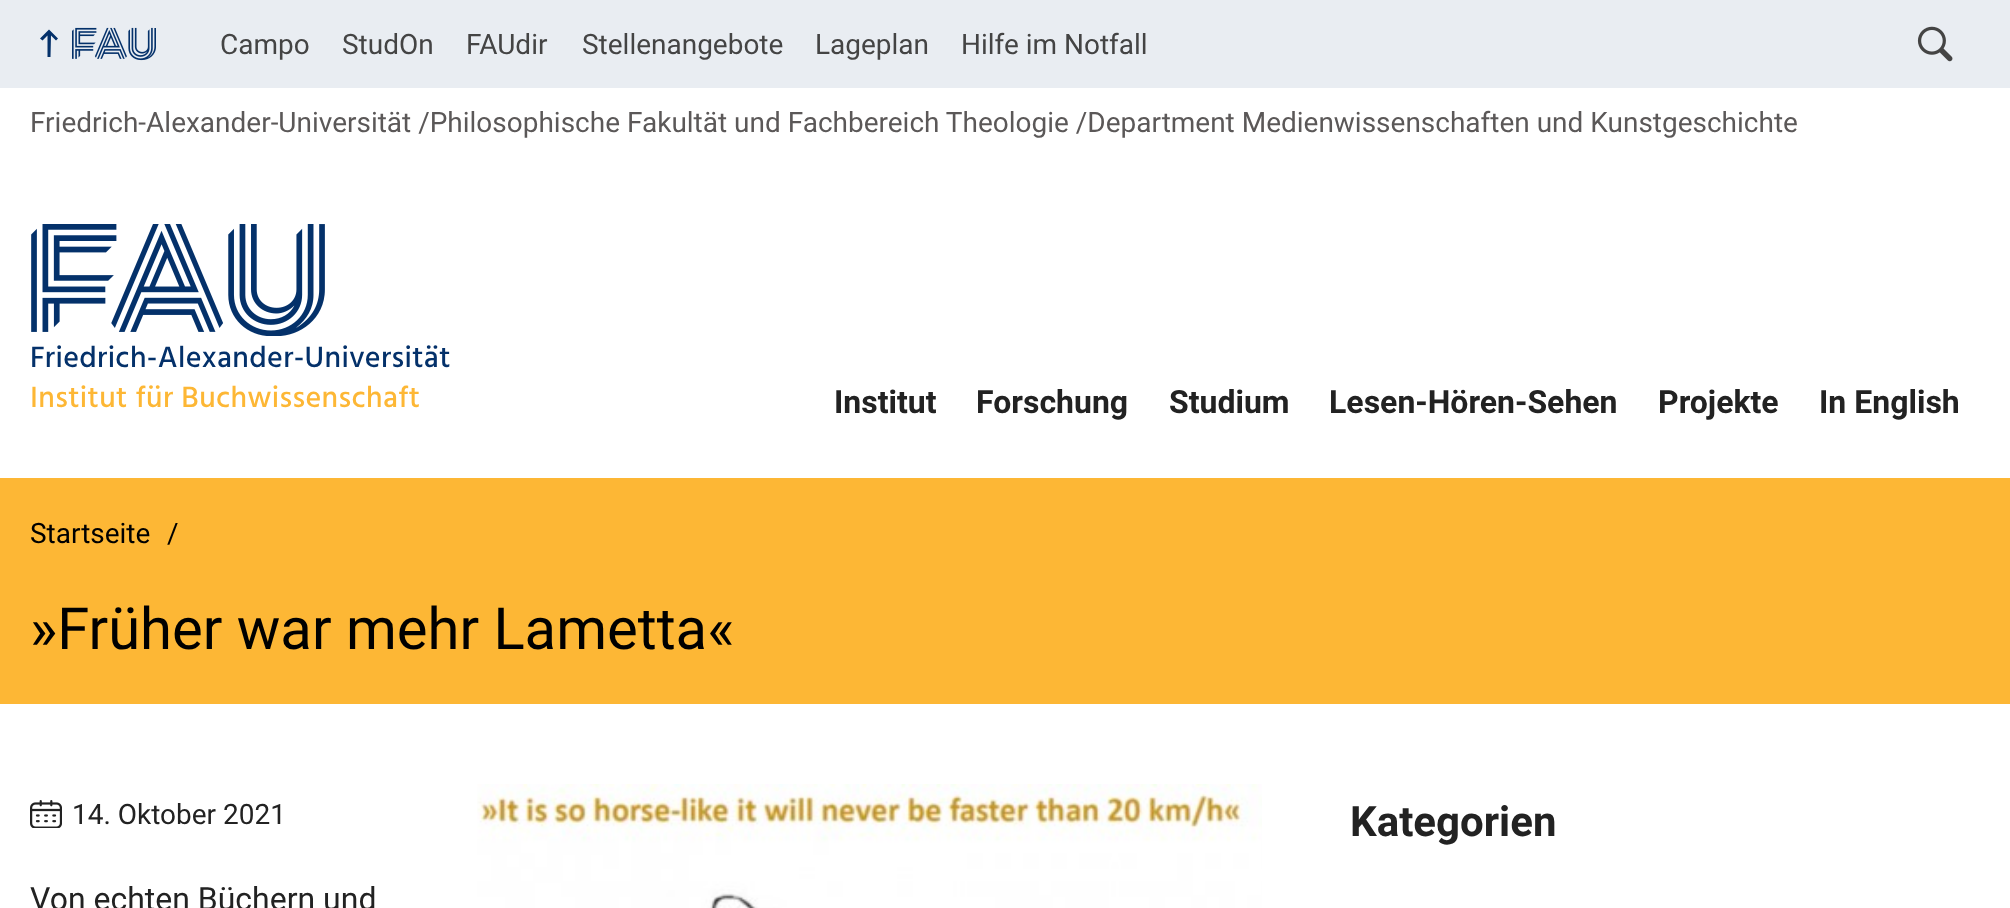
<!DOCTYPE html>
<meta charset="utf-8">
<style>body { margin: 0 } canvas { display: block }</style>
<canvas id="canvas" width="2010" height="908"></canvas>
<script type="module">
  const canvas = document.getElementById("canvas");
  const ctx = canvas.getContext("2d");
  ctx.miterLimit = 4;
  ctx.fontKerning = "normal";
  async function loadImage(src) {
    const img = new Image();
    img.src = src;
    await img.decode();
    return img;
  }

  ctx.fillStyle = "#ffffff";
  ctx.fillRect(0, 0, 2010, 908);
  ctx.fillStyle = "#e9edf2";
  ctx.fillRect(0, 0, 2010, 88);
  ctx.fillStyle = "#04316a";
  ctx.beginPath();
  ctx.moveTo(58, 38.5);
  ctx.lineTo(56, 40.5);
  ctx.lineTo(51, 35.5);
  ctx.lineTo(50.5, 57);
  ctx.lineTo(47.5, 57);
  ctx.lineTo(47.5, 35.5);
  ctx.lineTo(42.5, 40.5);
  ctx.lineTo(40, 38.5);
  ctx.lineTo(49, 29.5);
  ctx.closePath();
  ctx.fill();
  ctx.drawImage(await loadImage("img1.png"), 72, 27, 84, 34);
  ctx.font = "28px Roboto";
  ctx.fillStyle = "#444444";
  ctx.fillText("Campo", 220, 54);
  ctx.fillText("StudOn", 342, 54);
  ctx.fillText("FAUdir", 466, 54);
  ctx.fillText("Stellenangebote", 582, 54);
  ctx.fillText("Lageplan", 815, 54);
  ctx.fillText("Hilfe im Notfall", 961, 54);
  ctx.drawImage(await loadImage("img2.png"), 1917, 26, 36, 36);
  ctx.fillStyle = "#5b5858";
  ctx.fillText("Friedrich-Alexander-Universität /Philosophische Fakultät und Fachbereich Theologie /Department Medienwissenschaften und Kunstgeschichte", 30, 132);
  ctx.drawImage(await loadImage("img3.png"), 31, 224, 294, 112);
  ctx.letterSpacing = "0.4px";
  ctx.font = "500 30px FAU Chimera";
  ctx.fillStyle = "#04316a";
  ctx.fillText("Friedrich-Alexander-Universität", 30, 367);
  ctx.fillStyle = "#fdb735";
  ctx.fillText("Institut für Buchwissenschaft", 30, 407);
  ctx.letterSpacing = "0px";
  ctx.font = "bold 32px Roboto";
  ctx.fillStyle = "#222222";
  ctx.fillText("Institut", 834, 413);
  ctx.fillText("Forschung", 976, 413);
  ctx.fillText("Studium", 1169, 413);
  ctx.fillText("Lesen-Hören-Sehen", 1329, 413);
  ctx.fillText("Projekte", 1658, 413);
  ctx.fillText("In English", 1819, 413);
  ctx.fillStyle = "#fdb735";
  ctx.fillRect(0, 478, 2010, 226);
  ctx.font = "28px Roboto";
  ctx.fillStyle = "#000000";
  ctx.fillText("Startseite", 30, 543);
  ctx.fillText("/", 167, 543);
  ctx.font = "58px Roboto";
  ctx.fillText("»Früher war mehr Lametta«", 30, 649);
  ctx.drawImage(await loadImage("img4.png"), 30, 800, 32, 28);
  ctx.font = "28px Roboto";
  ctx.fillStyle = "#222222";
  ctx.fillText("14. Oktober 2021", 72, 824);
  ctx.drawImage(await loadImage("img5.png"), 477, 784, 785, 124);
  ctx.font = "32px Roboto";
  ctx.fillText("Von echten Büchern und", 30, 910);
  ctx.font = "bold 42px Roboto";
  ctx.fillText("Kategorien", 1350, 836);
</script>
